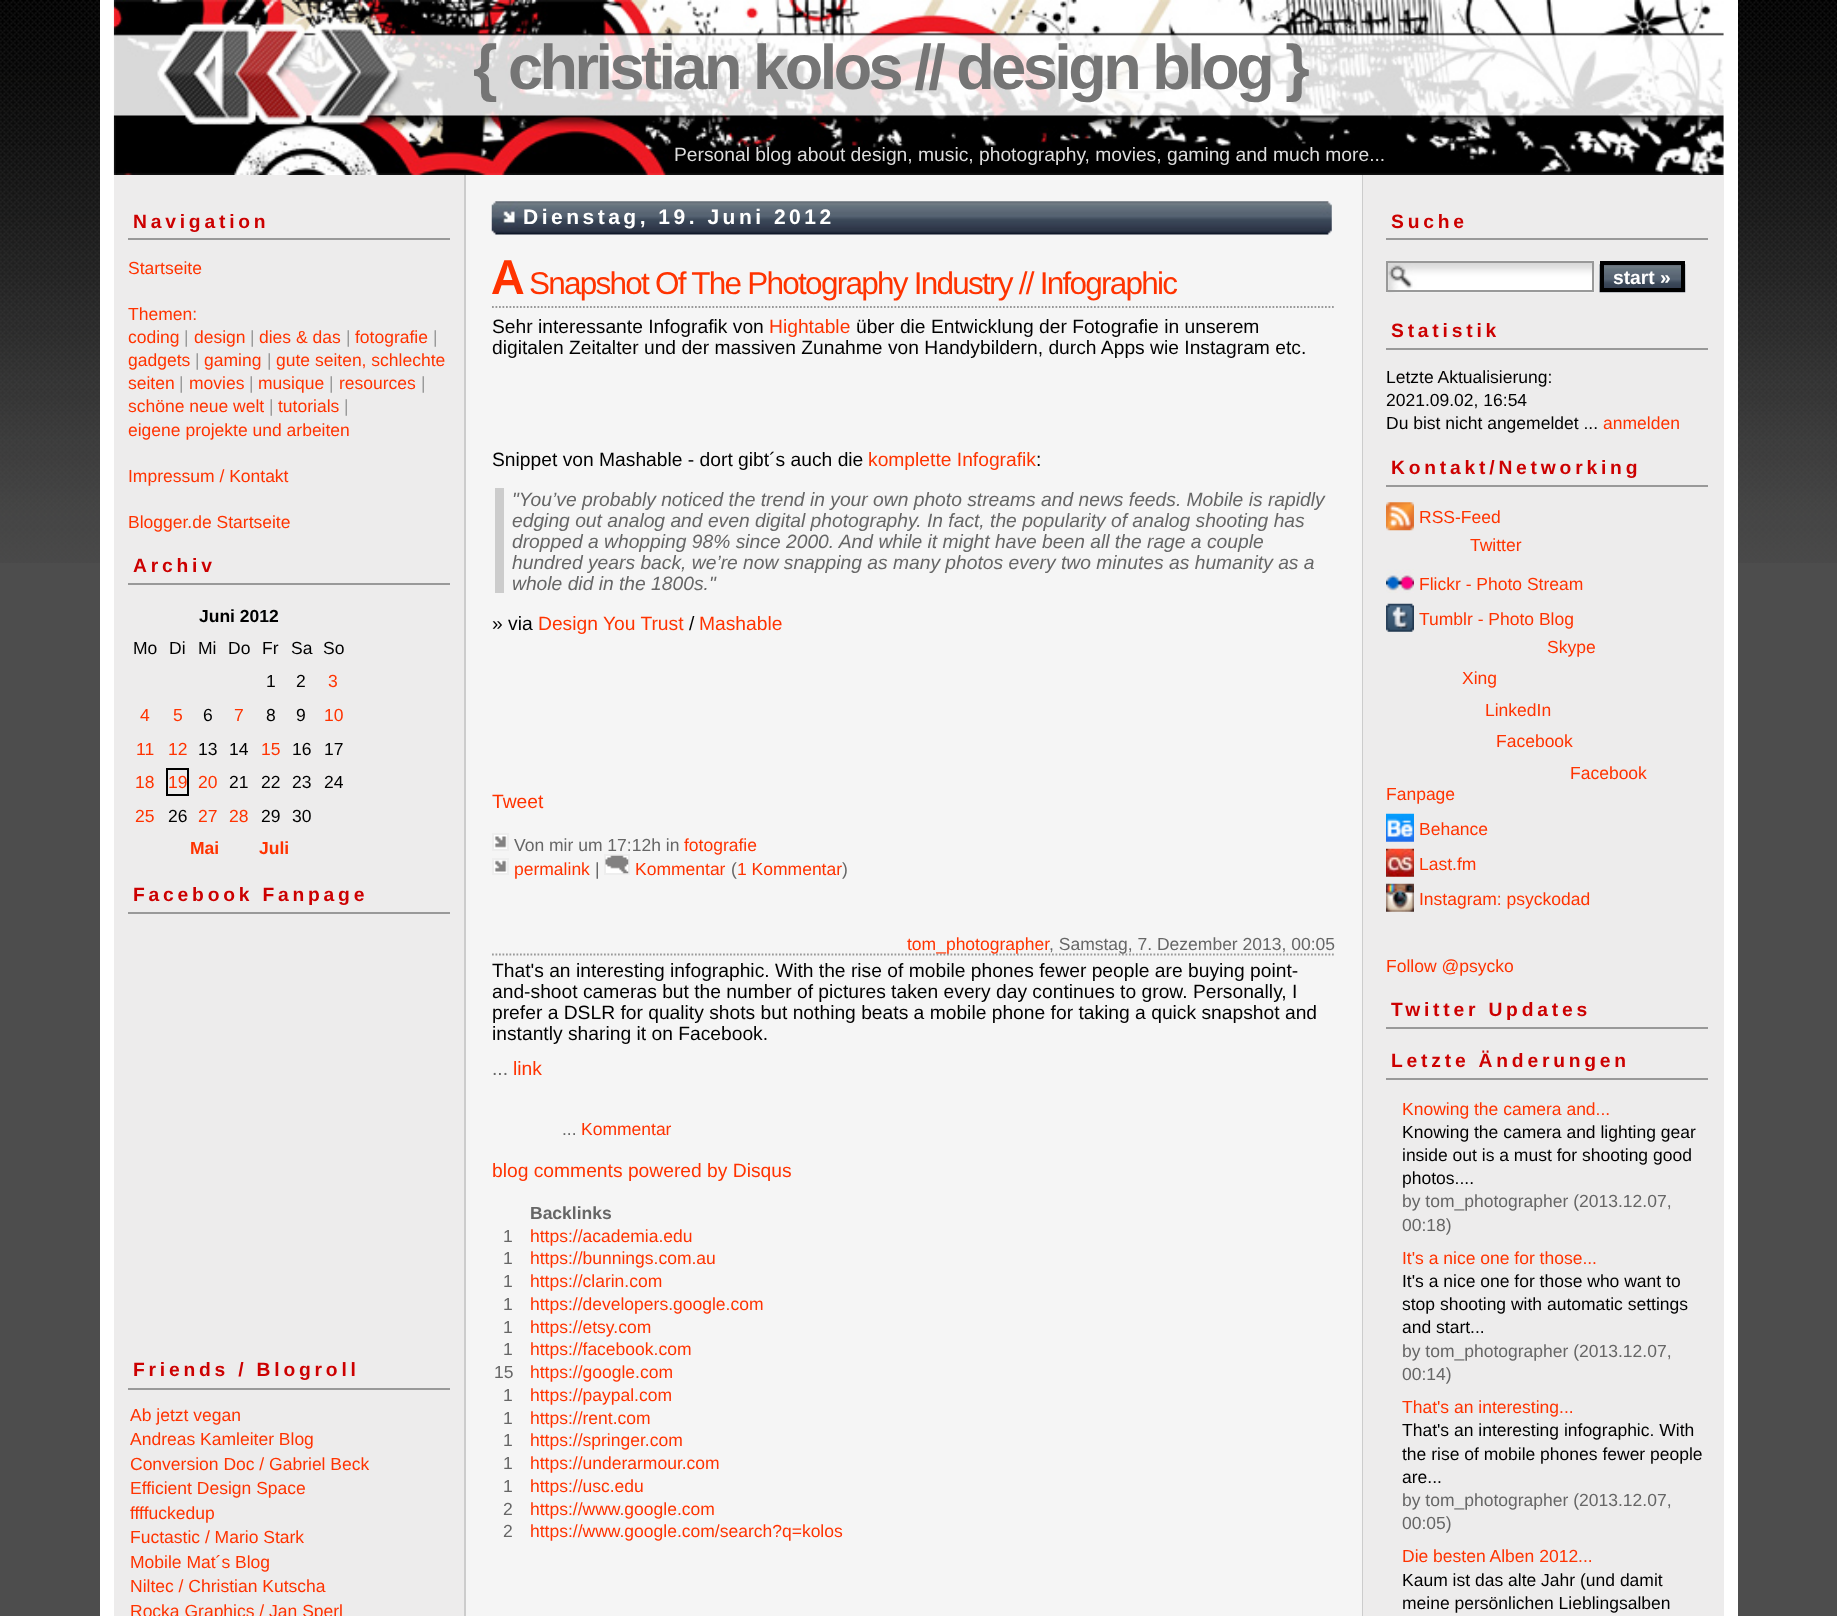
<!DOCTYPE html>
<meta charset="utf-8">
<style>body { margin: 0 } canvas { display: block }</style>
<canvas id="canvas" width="1837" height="1616"></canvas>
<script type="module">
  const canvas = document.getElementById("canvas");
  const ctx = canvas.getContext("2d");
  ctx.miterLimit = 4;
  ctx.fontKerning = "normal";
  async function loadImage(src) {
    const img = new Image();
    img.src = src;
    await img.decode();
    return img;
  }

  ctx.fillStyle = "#4d4d4d";
  ctx.fillRect(0, 0, 1837, 1616);
  ctx.drawImage(await loadImage("img1.png"), 0, 0, 1837, 563);
  ctx.fillStyle = "#edecec";
  ctx.fillRect(114, 175, 1610, 1441);
  ctx.fillStyle = "#ffffff";
  ctx.fillRect(1724, 0, 14, 1616);
  ctx.fillRect(100, 0, 14, 1616);
  ctx.fillRect(1723, 0, 1, 175);
  ctx.drawImage(await loadImage("img2.png"), 113, 0, 1611, 175);
  ctx.letterSpacing = "-3.5px";
  ctx.font = "bold 63px Liberation Sans";
  ctx.fillStyle = "#757575";
  ctx.fillText("{ christian kolos // design blog }", 473, 89);
  ctx.letterSpacing = "0px";
  ctx.font = "19.25px Liberation Sans";
  ctx.fillStyle = "#dddddd";
  ctx.fillText("Personal blog about design, music, photography, movies, gaming and much more...", 674, 161);
  ctx.fillStyle = "#999999";
  ctx.fillRect(128, 238, 322, 2);
  ctx.letterSpacing = "3.8px";
  ctx.font = "bold 19.25px Liberation Sans";
  ctx.fillStyle = "#cc0000";
  ctx.fillText("Navigation", 133, 228);
  ctx.letterSpacing = "0px";
  ctx.font = "17.5px Liberation Sans";
  ctx.fillStyle = "#ff3300";
  ctx.fillText("Startseite", 128, 274);
  ctx.fillText("Themen:", 128, 320);
  ctx.fillText("coding", 128, 343);
  ctx.fillStyle = "#999999";
  ctx.fillText("|", 184, 343);
  ctx.fillStyle = "#ff3300";
  ctx.fillText("design", 194, 343);
  ctx.fillStyle = "#999999";
  ctx.fillText("|", 250, 343);
  ctx.fillStyle = "#ff3300";
  ctx.fillText("dies & das", 259, 343);
  ctx.fillStyle = "#999999";
  ctx.fillText("|", 346, 343);
  ctx.fillStyle = "#ff3300";
  ctx.fillText("fotografie", 355, 343);
  ctx.fillStyle = "#999999";
  ctx.fillText("|", 433, 343);
  ctx.fillStyle = "#ff3300";
  ctx.fillText("gadgets", 128, 366);
  ctx.fillStyle = "#999999";
  ctx.fillText("|", 195, 366);
  ctx.fillStyle = "#ff3300";
  ctx.fillText("gaming", 204, 366);
  ctx.fillStyle = "#999999";
  ctx.fillText("|", 267, 366);
  ctx.fillStyle = "#ff3300";
  ctx.fillText("gute seiten, schlechte", 276, 366);
  ctx.fillText("seiten", 128, 389);
  ctx.fillStyle = "#999999";
  ctx.fillText("|", 179, 389);
  ctx.fillStyle = "#ff3300";
  ctx.fillText("movies", 189, 389);
  ctx.fillStyle = "#999999";
  ctx.fillText("|", 249, 389);
  ctx.fillStyle = "#ff3300";
  ctx.fillText("musique", 258, 389);
  ctx.fillStyle = "#999999";
  ctx.fillText("|", 329, 389);
  ctx.fillStyle = "#ff3300";
  ctx.fillText("resources", 339, 389);
  ctx.fillStyle = "#999999";
  ctx.fillText("|", 421, 389);
  ctx.fillStyle = "#ff3300";
  ctx.fillText("schöne neue welt", 128, 412);
  ctx.fillStyle = "#999999";
  ctx.fillText("|", 269, 412);
  ctx.fillStyle = "#ff3300";
  ctx.fillText("tutorials", 278, 412);
  ctx.fillStyle = "#999999";
  ctx.fillText("|", 344, 412);
  ctx.fillStyle = "#ff3300";
  ctx.fillText("eigene projekte und arbeiten", 128, 436);
  ctx.fillText("Impressum / Kontakt", 128, 482);
  ctx.fillText("Blogger.de Startseite", 128, 528);
  ctx.fillStyle = "#999999";
  ctx.fillRect(128, 583, 322, 2);
  ctx.letterSpacing = "3.8px";
  ctx.font = "bold 19.25px Liberation Sans";
  ctx.fillStyle = "#cc0000";
  ctx.fillText("Archiv", 133, 572);
  ctx.letterSpacing = "0px";
  ctx.font = "bold 17.5px Liberation Sans";
  ctx.fillStyle = "#000000";
  ctx.fillText("Juni 2012", 199, 622);
  ctx.font = "17.5px Liberation Sans";
  ctx.fillText("Mo", 133, 654);
  ctx.fillText("Di", 169, 654);
  ctx.fillText("Mi", 198, 654);
  ctx.fillText("Do", 228, 654);
  ctx.fillText("Fr", 262, 654);
  ctx.fillText("Sa", 291, 654);
  ctx.fillText("So", 323, 654);
  ctx.fillText("1", 266, 687);
  ctx.fillText("2", 296, 687);
  ctx.fillStyle = "#ff3300";
  ctx.fillText("3", 328, 687);
  ctx.fillText("4", 140, 721);
  ctx.fillText("5", 173, 721);
  ctx.fillStyle = "#000000";
  ctx.fillText("6", 203, 721);
  ctx.fillStyle = "#ff3300";
  ctx.fillText("7", 234, 721);
  ctx.fillStyle = "#000000";
  ctx.fillText("8", 266, 721);
  ctx.fillText("9", 296, 721);
  ctx.fillStyle = "#ff3300";
  ctx.fillText("10", 324, 721);
  ctx.fillText("11", 136, 755);
  ctx.fillText("12", 168, 755);
  ctx.fillStyle = "#000000";
  ctx.fillText("13", 198, 755);
  ctx.fillText("14", 229, 755);
  ctx.fillStyle = "#ff3300";
  ctx.fillText("15", 261, 755);
  ctx.fillStyle = "#000000";
  ctx.fillText("16", 292, 755);
  ctx.fillText("17", 324, 755);
  ctx.fillStyle = "#ff3300";
  ctx.fillText("18", 135, 788);
  ctx.strokeStyle = "#000000";
  ctx.lineWidth = 2;
  ctx.strokeRect(167, 769, 21, 26);
  ctx.fillText("19", 168, 788);
  ctx.fillText("20", 198, 788);
  ctx.fillStyle = "#000000";
  ctx.fillText("21", 229, 788);
  ctx.fillText("22", 261, 788);
  ctx.fillText("23", 292, 788);
  ctx.fillText("24", 324, 788);
  ctx.fillStyle = "#ff3300";
  ctx.fillText("25", 135, 822);
  ctx.fillStyle = "#000000";
  ctx.fillText("26", 168, 822);
  ctx.fillStyle = "#ff3300";
  ctx.fillText("27", 198, 822);
  ctx.fillText("28", 229, 822);
  ctx.fillStyle = "#000000";
  ctx.fillText("29", 261, 822);
  ctx.fillText("30", 292, 822);
  ctx.font = "bold 17.5px Liberation Sans";
  ctx.fillStyle = "#ff3300";
  ctx.fillText("Mai", 190, 854);
  ctx.fillText("Juli", 259, 854);
  ctx.fillStyle = "#999999";
  ctx.fillRect(128, 912, 322, 2);
  ctx.letterSpacing = "3.8px";
  ctx.font = "bold 19.25px Liberation Sans";
  ctx.fillStyle = "#cc0000";
  ctx.fillText("Facebook Fanpage", 133, 901);
  ctx.fillStyle = "#999999";
  ctx.fillRect(128, 1388, 322, 2);
  ctx.fillStyle = "#cc0000";
  ctx.fillText("Friends / Blogroll", 133, 1376);
  ctx.letterSpacing = "0px";
  ctx.font = "17.5px Liberation Sans";
  ctx.fillStyle = "#ff3300";
  ctx.fillText("Ab jetzt vegan", 130, 1421);
  ctx.fillText("Andreas Kamleiter Blog", 130, 1445);
  ctx.fillText("Conversion Doc / Gabriel Beck", 130, 1470);
  ctx.fillText("Efficient Design Space", 130, 1494);
  ctx.fillText("ffffuckedup", 130, 1519);
  ctx.fillText("Fuctastic / Mario Stark", 130, 1543);
  ctx.fillText("Mobile Mat´s Blog", 130, 1568);
  ctx.fillText("Niltec / Christian Kutscha", 130, 1592);
  ctx.fillText("Rocka Graphics / Jan Sperl", 130, 1617);
  ctx.fillStyle = "#cccccc";
  ctx.fillRect(1362, 175, 1, 1441);
  ctx.fillRect(464, 175, 2, 1441);
  ctx.fillStyle = "#f5f5f5";
  ctx.fillRect(466, 175, 896, 1441);
  ctx.drawImage(await loadImage("img3.png"), 491, 201, 841, 34);
  ctx.letterSpacing = "3.5px";
  ctx.font = "bold 21px Liberation Sans";
  ctx.fillStyle = "#ffffff";
  ctx.fillText("Dienstag, 19. Juni 2012", 523, 224);
  ctx.beginPath();
  ctx.moveTo(492, 307);
  ctx.lineTo(1335, 307);
  ctx.strokeStyle = "#999999";
  ctx.lineWidth = 1.8;
  ctx.setLineDash([1.75, 1.75]);
  ctx.stroke();
  ctx.letterSpacing = "-1.75px";
  ctx.font = "600 47px Noto Sans";
  ctx.fillStyle = "#ff3300";
  ctx.fillText("A", 492, 294);
  ctx.font = "31.5px Liberation Sans";
  ctx.fillText("Snapshot Of The Photography Industry // Infographic", 529, 294);
  ctx.letterSpacing = "0px";
  ctx.font = "19.25px Liberation Sans";
  ctx.fillStyle = "#000000";
  ctx.fillText("Sehr interessante Infografik von", 492, 333);
  ctx.fillStyle = "#ff3300";
  ctx.fillText("Hightable", 769, 333);
  ctx.fillStyle = "#000000";
  ctx.fillText("über die Entwicklung der Fotografie in unserem", 856, 333);
  ctx.fillText("digitalen Zeitalter und der massiven Zunahme von Handybildern, durch Apps wie Instagram etc.", 492, 354);
  ctx.fillText("Snippet von Mashable - dort gibt´s auch die", 492, 466);
  ctx.fillStyle = "#ff3300";
  ctx.fillText("komplette Infografik", 868, 466);
  ctx.fillStyle = "#000000";
  ctx.fillText(":", 1036, 466);
  ctx.fillStyle = "#cccccc";
  ctx.fillRect(495, 488, 9, 105);
  ctx.font = "italic 19.25px Liberation Sans";
  ctx.fillStyle = "#666666";
  ctx.fillText("\"You’ve probably noticed the trend in your own photo streams and news feeds. Mobile is rapidly", 512, 506);
  ctx.fillText("edging out analog and even digital photography. In fact, the popularity of analog shooting has", 512, 527);
  ctx.fillText("dropped a whopping 98% since 2000. And while it might have been all the rage a couple", 512, 548);
  ctx.fillText("hundred years back, we’re now snapping as many photos every two minutes as humanity as a", 512, 569);
  ctx.fillText("whole did in the 1800s.\"", 512, 590);
  ctx.font = "19.25px Liberation Sans";
  ctx.fillStyle = "#000000";
  ctx.fillText("» via", 492, 630);
  ctx.fillStyle = "#ff3300";
  ctx.fillText("Design You Trust", 538, 630);
  ctx.fillStyle = "#000000";
  ctx.fillText("/", 689, 630);
  ctx.fillStyle = "#ff3300";
  ctx.fillText("Mashable", 699, 630);
  ctx.fillText("Tweet", 492, 808);
  ctx.fillStyle = "#ffffff";
  ctx.beginPath();
  ctx.rect(493, 834, 15, 16);
  ctx.fill();
  ctx.strokeStyle = "#eeeeee";
  ctx.lineWidth = 2;
  ctx.setLineDash([]);
  ctx.stroke();
  ctx.drawImage(await loadImage("img4.png"), 494, 836, 13, 12);
  ctx.font = "17.5px Liberation Sans";
  ctx.fillStyle = "#666666";
  ctx.fillText("Von mir um 17:12h in", 514, 851);
  ctx.fillStyle = "#ff3300";
  ctx.fillText("fotografie", 684, 851);
  ctx.fillStyle = "#ffffff";
  ctx.beginPath();
  ctx.rect(605, 855, 24, 19);
  ctx.fill();
  ctx.stroke();
  ctx.beginPath();
  ctx.rect(493, 859, 15, 15);
  ctx.fill();
  ctx.stroke();
  ctx.drawImage(await loadImage("img5.png"), 605, 855, 24, 19);
  ctx.drawImage(await loadImage("img6.png"), 494, 860, 13, 12);
  ctx.fillStyle = "#ff3300";
  ctx.fillText("permalink", 514, 875);
  ctx.fillStyle = "#666666";
  ctx.fillText("|", 595, 875);
  ctx.fillStyle = "#ff3300";
  ctx.fillText("Kommentar", 635, 875);
  ctx.fillStyle = "#666666";
  ctx.fillText("(", 731, 875);
  ctx.fillStyle = "#ff3300";
  ctx.fillText("1 Kommentar", 737, 875);
  ctx.fillStyle = "#666666";
  ctx.fillText(")", 842, 875);
  ctx.beginPath();
  ctx.moveTo(492, 954.5);
  ctx.lineTo(1335, 954.5);
  ctx.strokeStyle = "#999999";
  ctx.lineWidth = 1.8;
  ctx.setLineDash([1.75, 1.75]);
  ctx.stroke();
  ctx.fillStyle = "#ff3300";
  ctx.fillText("tom_photographer", 907, 950);
  ctx.fillStyle = "#666666";
  ctx.fillText(", Samstag, 7. Dezember 2013, 00:05", 1049, 950);
  ctx.font = "19.25px Liberation Sans";
  ctx.fillStyle = "#000000";
  ctx.fillText("That's an interesting infographic. With the rise of mobile phones fewer people are buying point-", 492, 977);
  ctx.fillText("and-shoot cameras but the number of pictures taken every day continues to grow. Personally, I", 492, 998);
  ctx.fillText("prefer a DSLR for quality shots but nothing beats a mobile phone for taking a quick snapshot and", 492, 1019);
  ctx.fillText("instantly sharing it on Facebook.", 492, 1040);
  ctx.fillStyle = "#666666";
  ctx.fillText("...", 492, 1075);
  ctx.fillStyle = "#ff3300";
  ctx.fillText("link", 513, 1075);
  ctx.font = "17.5px Liberation Sans";
  ctx.fillStyle = "#666666";
  ctx.fillText("...", 562, 1135);
  ctx.fillStyle = "#ff3300";
  ctx.fillText("Kommentar", 581, 1135);
  ctx.font = "19.25px Liberation Sans";
  ctx.fillText("blog comments powered by Disqus", 492, 1177);
  ctx.font = "bold 17.5px Liberation Sans";
  ctx.fillStyle = "#666666";
  ctx.fillText("Backlinks", 530, 1219);
  ctx.font = "17.5px Liberation Sans";
  ctx.fillText("1", 503, 1242);
  ctx.fillStyle = "#ff3300";
  ctx.fillText("https://academia.edu", 530, 1242);
  ctx.fillStyle = "#666666";
  ctx.fillText("1", 503, 1264);
  ctx.fillStyle = "#ff3300";
  ctx.fillText("https://bunnings.com.au", 530, 1264);
  ctx.fillStyle = "#666666";
  ctx.fillText("1", 503, 1287);
  ctx.fillStyle = "#ff3300";
  ctx.fillText("https://clarin.com", 530, 1287);
  ctx.fillStyle = "#666666";
  ctx.fillText("1", 503, 1310);
  ctx.fillStyle = "#ff3300";
  ctx.fillText("https://developers.google.com", 530, 1310);
  ctx.fillStyle = "#666666";
  ctx.fillText("1", 503, 1333);
  ctx.fillStyle = "#ff3300";
  ctx.fillText("https://etsy.com", 530, 1333);
  ctx.fillStyle = "#666666";
  ctx.fillText("1", 503, 1355);
  ctx.fillStyle = "#ff3300";
  ctx.fillText("https://facebook.com", 530, 1355);
  ctx.fillStyle = "#666666";
  ctx.fillText("15", 494, 1378);
  ctx.fillStyle = "#ff3300";
  ctx.fillText("https://google.com", 530, 1378);
  ctx.fillStyle = "#666666";
  ctx.fillText("1", 503, 1401);
  ctx.fillStyle = "#ff3300";
  ctx.fillText("https://paypal.com", 530, 1401);
  ctx.fillStyle = "#666666";
  ctx.fillText("1", 503, 1424);
  ctx.fillStyle = "#ff3300";
  ctx.fillText("https://rent.com", 530, 1424);
  ctx.fillStyle = "#666666";
  ctx.fillText("1", 503, 1446);
  ctx.fillStyle = "#ff3300";
  ctx.fillText("https://springer.com", 530, 1446);
  ctx.fillStyle = "#666666";
  ctx.fillText("1", 503, 1469);
  ctx.fillStyle = "#ff3300";
  ctx.fillText("https://underarmour.com", 530, 1469);
  ctx.fillStyle = "#666666";
  ctx.fillText("1", 503, 1492);
  ctx.fillStyle = "#ff3300";
  ctx.fillText("https://usc.edu", 530, 1492);
  ctx.fillStyle = "#666666";
  ctx.fillText("2", 503, 1515);
  ctx.fillStyle = "#ff3300";
  ctx.fillText("https://www.google.com", 530, 1515);
  ctx.fillStyle = "#666666";
  ctx.fillText("2", 503, 1537);
  ctx.fillStyle = "#ff3300";
  ctx.fillText("https://www.google.com/search?q=kolos", 530, 1537);
  ctx.fillStyle = "#999999";
  ctx.fillRect(1386, 238, 322, 2);
  ctx.letterSpacing = "3.8px";
  ctx.font = "bold 19.25px Liberation Sans";
  ctx.fillStyle = "#cc0000";
  ctx.fillText("Suche", 1391, 228);
  ctx.drawImage(await loadImage("img7.png"), 1386, 260, 209, 33);
  ctx.lineWidth = 2;
  ctx.setLineDash([]);
  ctx.strokeRect(1387, 262, 206, 29);
  ctx.drawImage(await loadImage("img8.png"), 1599, 264, 87, 29);
  ctx.strokeStyle = "#000000";
  ctx.lineWidth = 4;
  ctx.strokeRect(1602, 263, 81, 27);
  ctx.letterSpacing = "0px";
  ctx.fillStyle = "#ffffff";
  ctx.fillText("start »", 1613, 284);
  ctx.fillStyle = "#999999";
  ctx.fillRect(1386, 348, 322, 2);
  ctx.letterSpacing = "3.8px";
  ctx.fillStyle = "#cc0000";
  ctx.fillText("Statistik", 1391, 337);
  ctx.letterSpacing = "0px";
  ctx.font = "17.5px Liberation Sans";
  ctx.fillStyle = "#000000";
  ctx.fillText("Letzte Aktualisierung:", 1386, 383);
  ctx.fillText("2021.09.02, 16:54", 1386, 406);
  ctx.fillText("Du bist nicht angemeldet ...", 1386, 429);
  ctx.fillStyle = "#ff3300";
  ctx.fillText("anmelden", 1603, 429);
  ctx.fillStyle = "#999999";
  ctx.fillRect(1386, 485, 322, 2);
  ctx.letterSpacing = "3.8px";
  ctx.font = "bold 19.25px Liberation Sans";
  ctx.fillStyle = "#cc0000";
  ctx.fillText("Kontakt/Networking", 1391, 474);
  ctx.drawImage(await loadImage("img9.png"), 1386, 502, 28, 29);
  ctx.letterSpacing = "0px";
  ctx.font = "17.5px Liberation Sans";
  ctx.fillStyle = "#ff3300";
  ctx.fillText("RSS-Feed", 1419, 523);
  ctx.fillText("Twitter", 1470, 551);
  ctx.drawImage(await loadImage("img10.png"), 1386, 569, 28, 24);
  ctx.fillText("Flickr - Photo Stream", 1419, 590);
  ctx.drawImage(await loadImage("img11.png"), 1386, 603, 28, 29);
  ctx.fillText("Tumblr - Photo Blog", 1419, 625);
  ctx.fillText("Skype", 1547, 653);
  ctx.fillText("Xing", 1462, 684);
  ctx.fillText("LinkedIn", 1485, 716);
  ctx.fillText("Facebook", 1496, 747);
  ctx.fillText("Facebook", 1570, 779);
  ctx.fillText("Fanpage", 1386, 800);
  ctx.drawImage(await loadImage("img12.png"), 1386, 813, 28, 29);
  ctx.fillText("Behance", 1419, 835);
  ctx.drawImage(await loadImage("img13.png"), 1386, 848, 28, 29);
  ctx.fillText("Last.fm", 1419, 870);
  ctx.drawImage(await loadImage("img14.png"), 1386, 883, 28, 29);
  ctx.fillText("Instagram: psyckodad", 1419, 905);
  ctx.fillText("Follow @psycko", 1386, 972);
  ctx.fillStyle = "#999999";
  ctx.fillRect(1386, 1027, 322, 2);
  ctx.letterSpacing = "3.8px";
  ctx.font = "bold 19.25px Liberation Sans";
  ctx.fillStyle = "#cc0000";
  ctx.fillText("Twitter Updates", 1391, 1016);
  ctx.fillStyle = "#999999";
  ctx.fillRect(1386, 1078, 322, 2);
  ctx.fillStyle = "#cc0000";
  ctx.fillText("Letzte Änderungen", 1391, 1067);
  ctx.letterSpacing = "0px";
  ctx.font = "17.5px Liberation Sans";
  ctx.fillStyle = "#ff3300";
  ctx.fillText("Knowing the camera and...", 1402, 1115);
  ctx.fillStyle = "#000000";
  ctx.fillText("Knowing the camera and lighting gear", 1402, 1138);
  ctx.fillText("inside out is a must for shooting good", 1402, 1161);
  ctx.fillText("photos....", 1402, 1184);
  ctx.fillStyle = "#666666";
  ctx.fillText("by tom_photographer (2013.12.07,", 1402, 1207);
  ctx.fillText("00:18)", 1402, 1231);
  ctx.fillStyle = "#ff3300";
  ctx.fillText("It's a nice one for those...", 1402, 1264);
  ctx.fillStyle = "#000000";
  ctx.fillText("It's a nice one for those who want to", 1402, 1287);
  ctx.fillText("stop shooting with automatic settings", 1402, 1310);
  ctx.fillText("and start...", 1402, 1333);
  ctx.fillStyle = "#666666";
  ctx.fillText("by tom_photographer (2013.12.07,", 1402, 1357);
  ctx.fillText("00:14)", 1402, 1380);
  ctx.fillStyle = "#ff3300";
  ctx.fillText("That's an interesting...", 1402, 1413);
  ctx.fillStyle = "#000000";
  ctx.fillText("That's an interesting infographic. With", 1402, 1436);
  ctx.fillText("the rise of mobile phones fewer people", 1402, 1460);
  ctx.fillText("are...", 1402, 1483);
  ctx.fillStyle = "#666666";
  ctx.fillText("by tom_photographer (2013.12.07,", 1402, 1506);
  ctx.fillText("00:05)", 1402, 1529);
  ctx.fillStyle = "#ff3300";
  ctx.fillText("Die besten Alben 2012...", 1402, 1562);
  ctx.fillStyle = "#000000";
  ctx.fillText("Kaum ist das alte Jahr (und damit", 1402, 1586);
  ctx.fillText("meine persönlichen Lieblingsalben", 1402, 1609);
</script>
